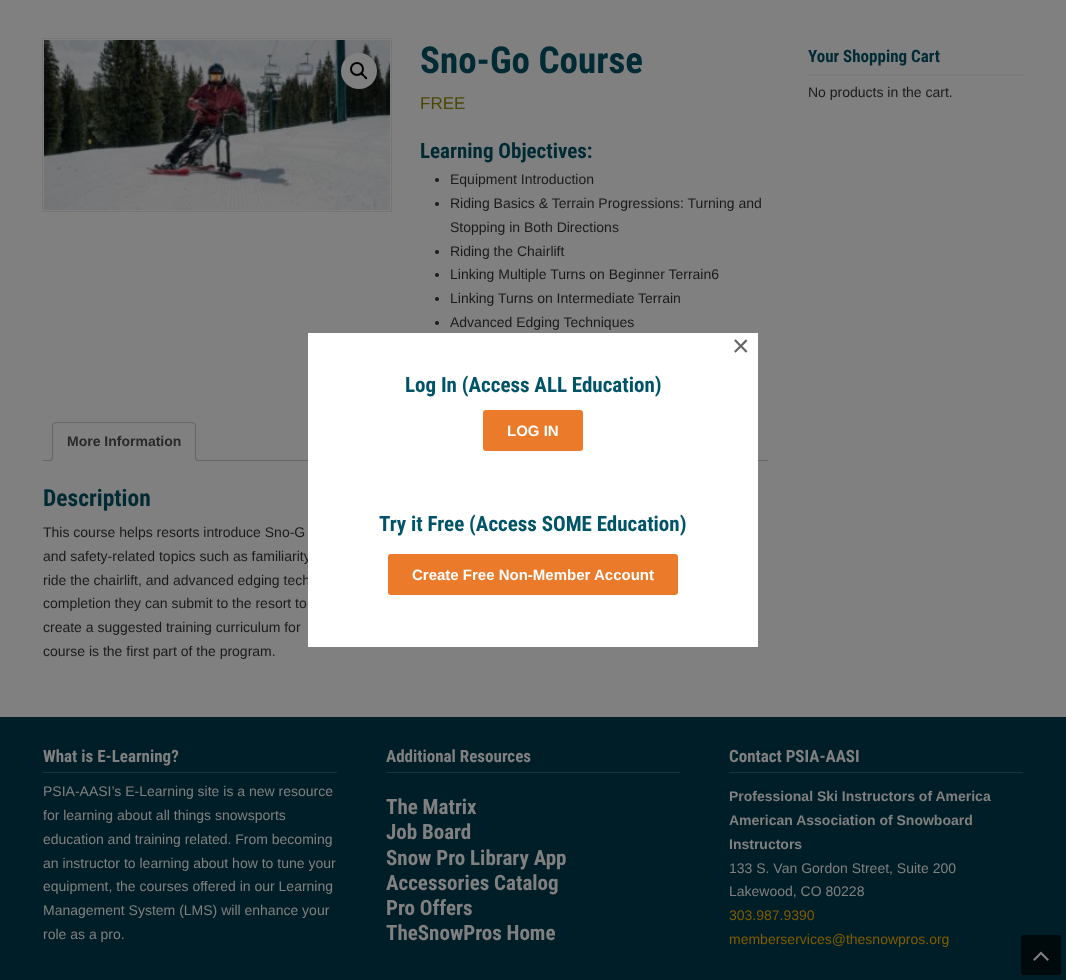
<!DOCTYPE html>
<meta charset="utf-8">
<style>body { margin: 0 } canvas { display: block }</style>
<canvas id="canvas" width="1066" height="980"></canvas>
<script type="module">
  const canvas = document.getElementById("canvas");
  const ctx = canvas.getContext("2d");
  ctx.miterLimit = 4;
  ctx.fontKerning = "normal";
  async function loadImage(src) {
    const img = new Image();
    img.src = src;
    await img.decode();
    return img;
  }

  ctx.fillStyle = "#001e27";
  ctx.fillRect(0, 0, 1066, 980);
  ctx.fillStyle = "#808080";
  ctx.fillRect(0, 0, 1066, 717);
  ctx.strokeStyle = "#757575";
  ctx.strokeRect(42.5, 38.5, 349, 173);
  ctx.drawImage(await loadImage("img1.png"), 44, 40, 346, 170);
  ctx.beginPath();
  ctx.arc(359, 71, 18, 0, Math.PI * 2);
  ctx.fill();
  ctx.beginPath();
  ctx.arc(357, 69, 6, 0, Math.PI * 2);
  ctx.strokeStyle = "#000000";
  ctx.lineWidth = 2;
  ctx.stroke();
  ctx.fillStyle = "#000000";
  ctx.beginPath();
  ctx.moveTo(361, 73);
  ctx.bezierCurveTo(362.5, 72, 364, 74.5, 364.5, 75.5);
  ctx.bezierCurveTo(365.5, 76, 368, 77.5, 367, 79);
  ctx.bezierCurveTo(365.5, 80, 364, 77.5, 363.5, 76.5);
  ctx.bezierCurveTo(362.5, 76, 360, 74.5, 361, 73);
  ctx.closePath();
  ctx.fill();
  ctx.font = "bold 37px Roboto Condensed";
  ctx.fillStyle = "#002a34";
  ctx.fillText("Sno-Go Course", 420, 73);
  ctx.font = "17px Liberation Sans";
  ctx.fillStyle = "#4b4705";
  ctx.fillText("FREE", 420, 109);
  ctx.font = "bold 21px Roboto Condensed";
  ctx.fillStyle = "#002a34";
  ctx.fillText("Learning Objectives:", 420, 158);
  ctx.fillStyle = "#1a1a1a";
  ctx.beginPath();
  ctx.arc(437, 180, 2, 0, Math.PI * 2);
  ctx.fill();
  ctx.font = "14px Liberation Sans";
  ctx.fillText("Equipment Introduction", 450, 184);
  ctx.beginPath();
  ctx.arc(437, 204, 2, 0, Math.PI * 2);
  ctx.fill();
  ctx.fillText("Riding Basics & Terrain Progressions: Turning and", 450, 208);
  ctx.fillText("Stopping in Both Directions", 450, 232);
  ctx.beginPath();
  ctx.arc(437, 252, 2, 0, Math.PI * 2);
  ctx.fill();
  ctx.fillText("Riding the Chairlift", 450, 256);
  ctx.beginPath();
  ctx.arc(437, 275, 2, 0, Math.PI * 2);
  ctx.fill();
  ctx.fillText("Linking Multiple Turns on Beginner Terrain6", 450, 279);
  ctx.beginPath();
  ctx.arc(437, 299, 2, 0, Math.PI * 2);
  ctx.fill();
  ctx.fillText("Linking Turns on Intermediate Terrain", 450, 303);
  ctx.beginPath();
  ctx.arc(437, 323, 2, 0, Math.PI * 2);
  ctx.fill();
  ctx.fillText("Advanced Edging Techniques", 450, 327);
  ctx.fillStyle = "#68646c";
  ctx.fillRect(43, 460, 725, 1);
  ctx.fillStyle = "#808080";
  ctx.beginPath();
  ctx.roundRect(52, 422, 144, 39, [4, 4, 0, 0]);
  ctx.fill();
  ctx.fillStyle = "#68646c";
  ctx.beginPath();
  ctx.moveTo(56, 422);
  ctx.lineTo(53, 423);
  ctx.lineTo(54, 424);
  ctx.lineTo(56, 423);
  ctx.lineTo(192, 423);
  ctx.lineTo(194, 424);
  ctx.lineTo(195, 423);
  ctx.lineTo(192, 422);
  ctx.closePath();
  ctx.fill();
  ctx.beginPath();
  ctx.moveTo(196, 461);
  ctx.lineTo(196, 426);
  ctx.bezierCurveTo(196, 425, 195.5, 424, 195, 423);
  ctx.lineTo(194, 424);
  ctx.bezierCurveTo(195, 424, 195, 425, 195, 426);
  ctx.lineTo(195, 460);
  ctx.closePath();
  ctx.fill();
  ctx.fillStyle = "#808080";
  ctx.beginPath();
  ctx.moveTo(196, 461);
  ctx.lineTo(195, 460);
  ctx.lineTo(53, 460);
  ctx.lineTo(52, 461);
  ctx.closePath();
  ctx.fill();
  ctx.fillStyle = "#68646c";
  ctx.beginPath();
  ctx.moveTo(52, 461);
  ctx.lineTo(53, 460);
  ctx.lineTo(53, 426);
  ctx.bezierCurveTo(53, 425, 53, 424, 54, 424);
  ctx.lineTo(53, 423);
  ctx.bezierCurveTo(52.5, 424, 52, 425, 52, 426);
  ctx.closePath();
  ctx.fill();
  ctx.font = "bold 14px Liberation Sans";
  ctx.fillStyle = "#292929";
  ctx.fillText("More Information", 67, 446);
  ctx.save();
  ctx.beginPath();
  ctx.rect(43, 422, 725, 39);
  ctx.clip();
  ctx.fillStyle = "#808080";
  ctx.beginPath();
  ctx.moveTo(50, 461);
  ctx.lineTo(50, 463);
  ctx.bezierCurveTo(53.5, 463, 55, 461.5, 55, 458);
  ctx.lineTo(53, 458);
  ctx.bezierCurveTo(52.5, 459.5, 51.5, 460.5, 50, 461);
  ctx.closePath();
  ctx.fill();
  ctx.restore();
  ctx.fillStyle = "#68646c";
  ctx.beginPath();
  ctx.moveTo(48, 456);
  ctx.lineTo(53, 456);
  ctx.bezierCurveTo(53, 459.5, 51.5, 461, 48, 461);
  ctx.closePath();
  ctx.moveTo(48, 456);
  ctx.lineTo(52, 456);
  ctx.bezierCurveTo(52, 459, 51, 460, 48, 460);
  ctx.closePath();
  ctx.fill("evenodd");
  ctx.save();
  ctx.beginPath();
  ctx.rect(43, 422, 725, 39);
  ctx.clip();
  ctx.fillStyle = "#808080";
  ctx.beginPath();
  ctx.moveTo(193, 458);
  ctx.bezierCurveTo(193, 461.5, 194.5, 463, 198, 463);
  ctx.lineTo(198, 461);
  ctx.bezierCurveTo(196.5, 460.5, 195.5, 459.5, 195, 458);
  ctx.closePath();
  ctx.fill();
  ctx.restore();
  ctx.beginPath();
  ctx.moveTo(195, 456);
  ctx.lineTo(200, 456);
  ctx.lineTo(200, 461);
  ctx.bezierCurveTo(197.5, 461, 195, 460, 195, 457);
  ctx.closePath();
  ctx.moveTo(196, 456);
  ctx.lineTo(200, 456);
  ctx.lineTo(200, 460);
  ctx.bezierCurveTo(198, 460, 196, 459.5, 196, 457);
  ctx.closePath();
  ctx.fill("evenodd");
  ctx.font = "bold 23.5px Roboto Condensed";
  ctx.fillStyle = "#002a34";
  ctx.fillText("Description", 43, 506);
  ctx.font = "14px Liberation Sans";
  ctx.fillStyle = "#1a1a1a";
  ctx.fillText("This course helps resorts introduce Sno-G", 43, 537);
  ctx.fillText("and safety-related topics such as familiarity", 43, 561);
  ctx.fillText("ride the chairlift, and advanced edging tech", 43, 585);
  ctx.fillText("completion they can submit to the resort to", 43, 608);
  ctx.fillText("create a suggested training curriculum for", 43, 632);
  ctx.fillText("course is the first part of the program.", 43, 656);
  ctx.drawImage(await loadImage("img2.png"), 808, 74, 215, 2);
  ctx.font = "bold 17px Roboto Condensed";
  ctx.fillStyle = "#002a34";
  ctx.fillText("Your Shopping Cart", 808, 62);
  ctx.font = "14px Liberation Sans";
  ctx.fillStyle = "#1a1a1a";
  ctx.fillText("No products in the cart.", 808, 97);
  ctx.fillStyle = "#1b3238";
  ctx.fillRect(43, 772, 294, 1);
  ctx.font = "bold 17px Roboto Condensed";
  ctx.fillStyle = "#808080";
  ctx.fillText("What is E-Learning?", 43, 762);
  ctx.font = "14px Liberation Sans";
  ctx.fillText("PSIA-AASI’s E-Learning site is a new resource", 43, 796);
  ctx.fillText("for learning about all things snowsports", 43, 820);
  ctx.fillText("education and training related. From becoming", 43, 844);
  ctx.fillText("an instructor to learning about how to tune your", 43, 868);
  ctx.fillText("equipment, the courses offered in our Learning", 43, 891);
  ctx.fillText("Management System (LMS) will enhance your", 43, 915);
  ctx.fillText("role as a pro.", 43, 939);
  ctx.fillStyle = "#1b3238";
  ctx.fillRect(386, 772, 294, 1);
  ctx.font = "bold 17px Roboto Condensed";
  ctx.fillStyle = "#808080";
  ctx.fillText("Additional Resources", 386, 762);
  ctx.font = "bold 21px Roboto Condensed";
  ctx.fillText("The Matrix", 386, 814);
  ctx.fillText("Job Board", 386, 839);
  ctx.fillText("Snow Pro Library App", 386, 865);
  ctx.fillText("Accessories Catalog", 386, 890);
  ctx.fillText("Pro Offers", 386, 915);
  ctx.fillText("TheSnowPros Home", 386, 940);
  ctx.fillStyle = "#1b3238";
  ctx.fillRect(729, 772, 294, 1);
  ctx.font = "bold 17px Roboto Condensed";
  ctx.fillStyle = "#808080";
  ctx.fillText("Contact PSIA-AASI", 729, 762);
  ctx.font = "bold 14px Liberation Sans";
  ctx.fillText("Professional Ski Instructors of America", 729, 801);
  ctx.fillText("American Association of Snowboard", 729, 825);
  ctx.fillText("Instructors", 729, 849);
  ctx.font = "14px Liberation Sans";
  ctx.fillText("133 S. Van Gordon Street, Suite 200", 729, 873);
  ctx.fillText("Lakewood, CO 80228", 729, 896);
  ctx.fillStyle = "#805c03";
  ctx.fillText("303.987.9390", 729, 920);
  ctx.fillText("memberservices@thesnowpros.org", 729, 944);
  ctx.fillStyle = "#ffffff";
  ctx.fillRect(308, 333, 450, 314);
  ctx.font = "30px Liberation Sans";
  ctx.fillStyle = "#666666";
  ctx.fillText("×", 732, 356);
  ctx.font = "bold 21px Roboto Condensed";
  ctx.fillStyle = "#005467";
  ctx.fillText("Log In (Access ALL Education)", 405, 392);
  ctx.fillStyle = "#eb7a2a";
  ctx.beginPath();
  ctx.roundRect(483, 410, 100, 41, 3);
  ctx.fill();
  ctx.font = "bold 15px Liberation Sans";
  ctx.fillStyle = "#ffffff";
  ctx.fillText("LOG IN", 507, 436);
  ctx.font = "bold 21px Roboto Condensed";
  ctx.fillStyle = "#005467";
  ctx.fillText("Try it Free (Access SOME Education)", 379, 531);
  ctx.fillStyle = "#eb7a2a";
  ctx.beginPath();
  ctx.roundRect(388, 554, 290, 41, 3);
  ctx.fill();
  ctx.font = "bold 15px Liberation Sans";
  ctx.fillStyle = "#ffffff";
  ctx.fillText("Create Free Non-Member Account", 412, 580);
  ctx.fillStyle = "#00090c";
  ctx.beginPath();
  ctx.roundRect(1021, 935, 40, 40, 3);
  ctx.fill();
  ctx.drawImage(await loadImage("img3.png"), 1033, 951, 16, 10);
</script>
